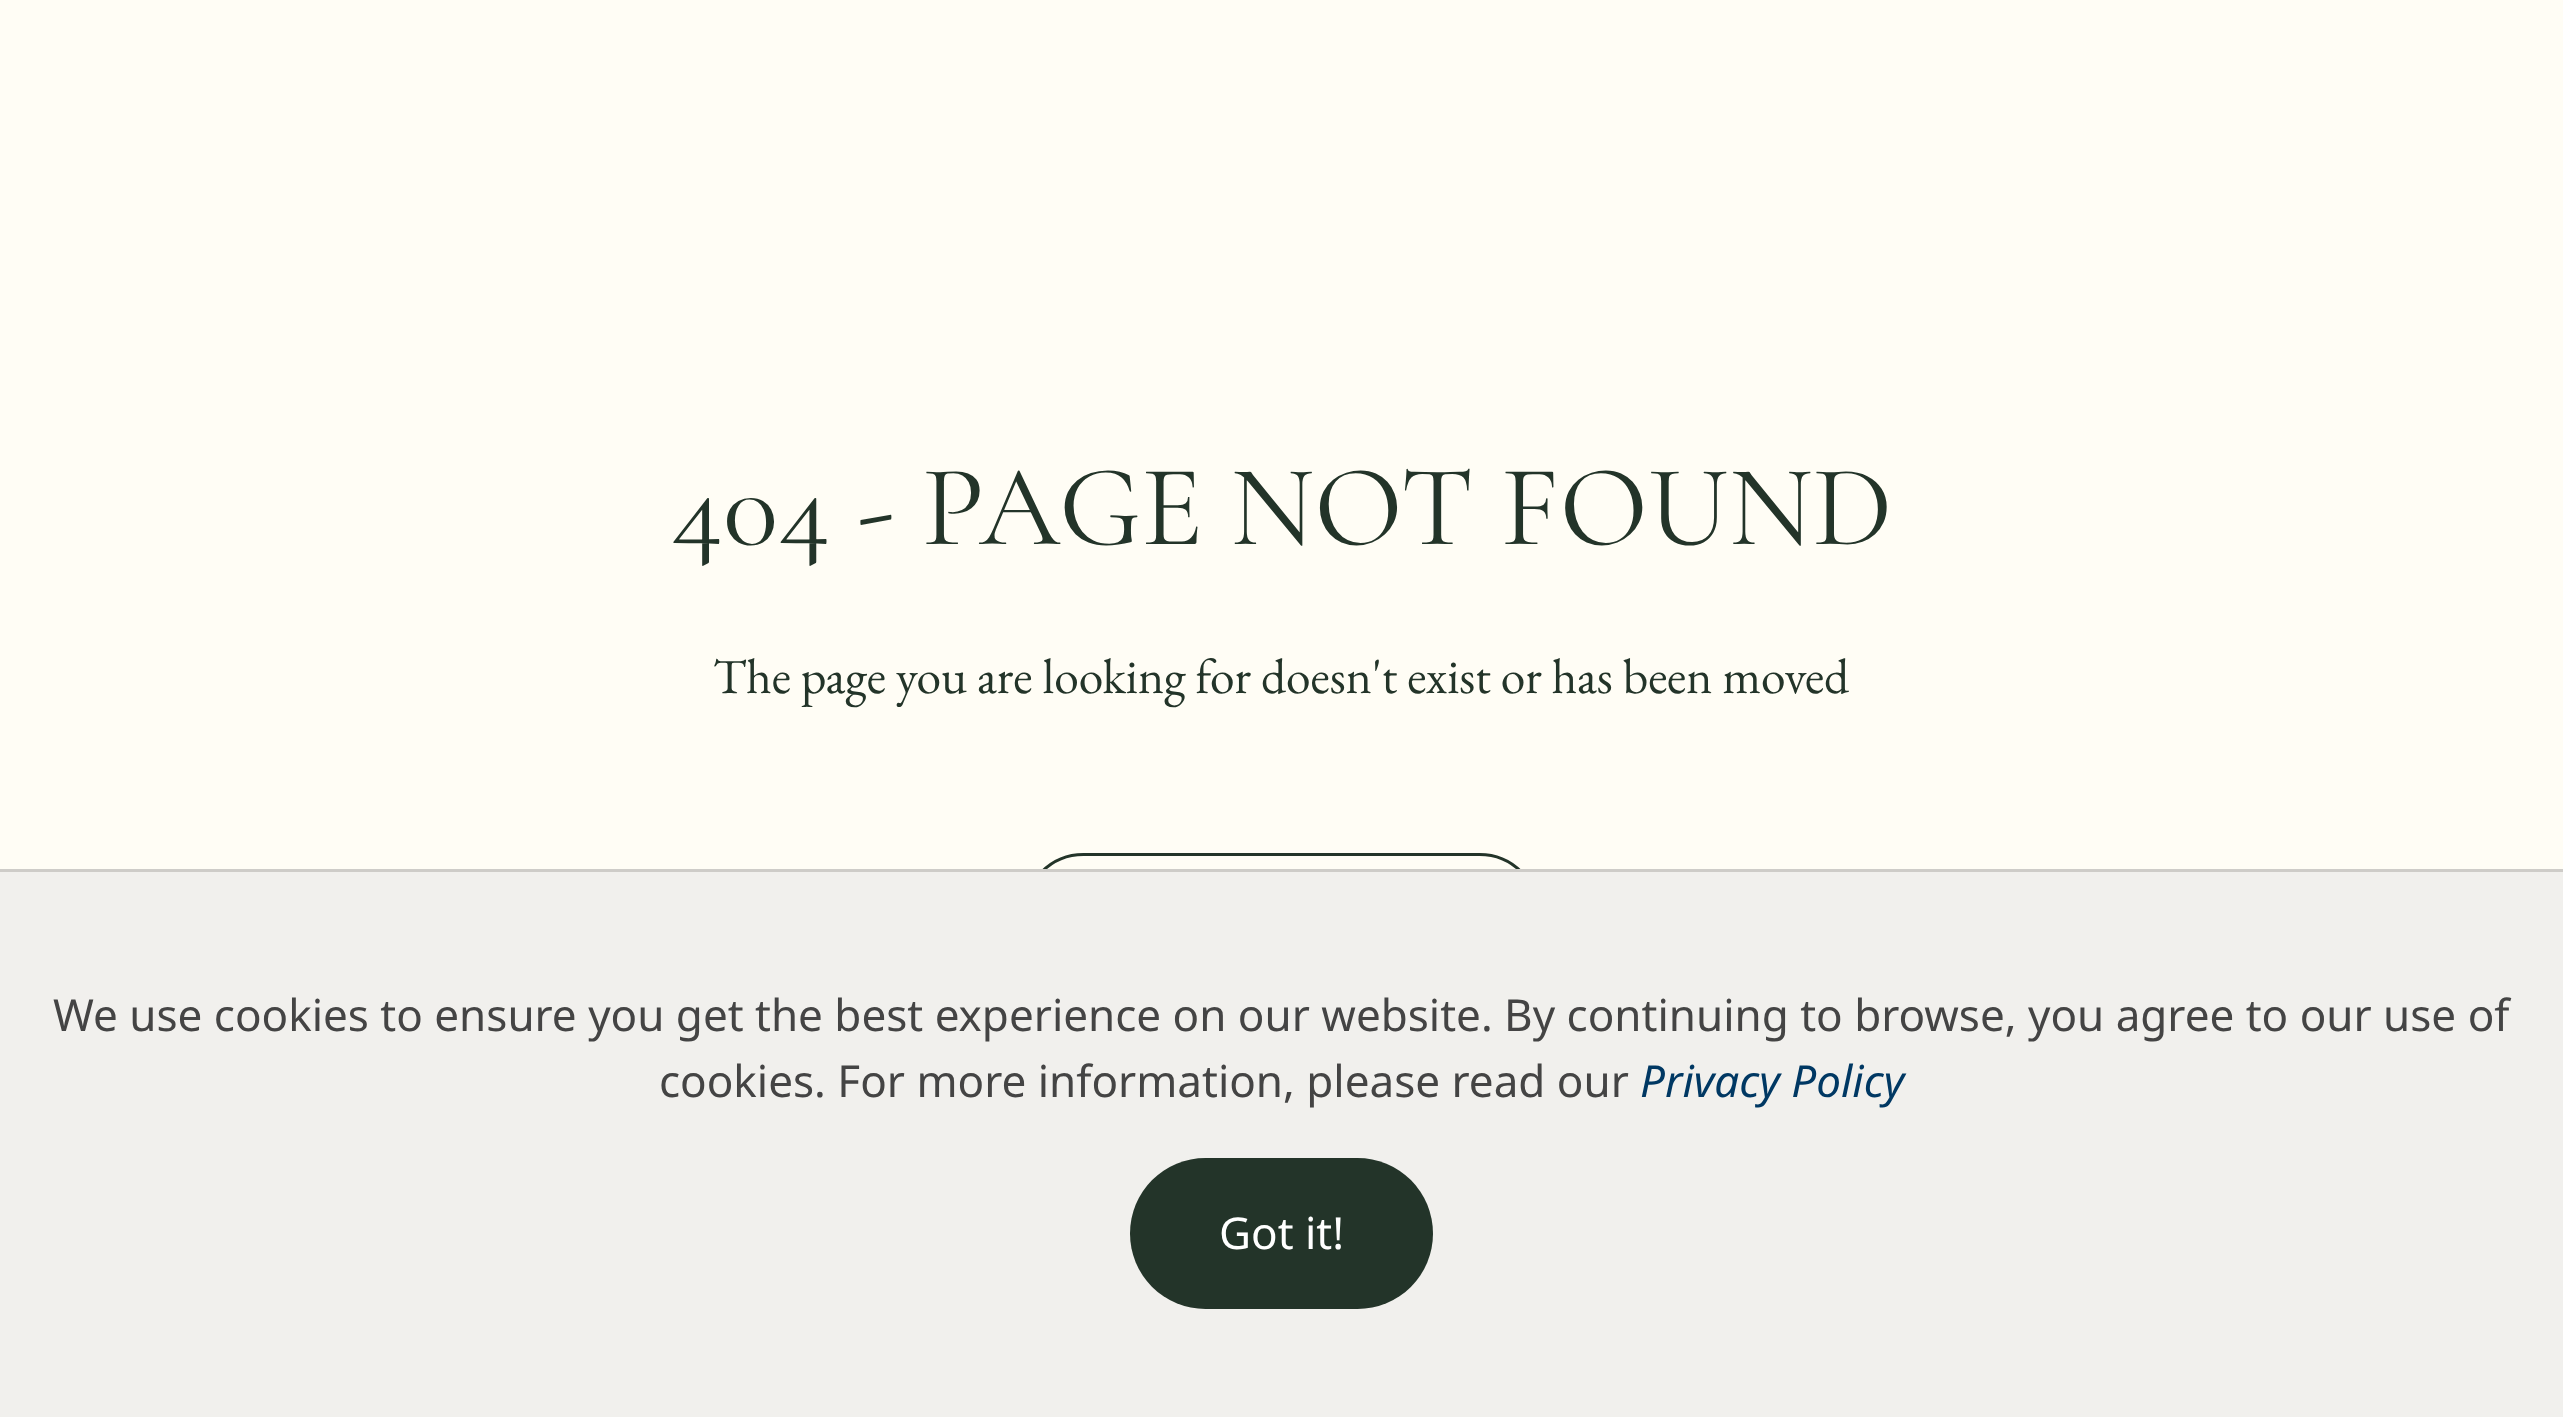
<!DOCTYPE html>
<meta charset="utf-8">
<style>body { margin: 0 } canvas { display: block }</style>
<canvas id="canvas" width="2563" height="1417"></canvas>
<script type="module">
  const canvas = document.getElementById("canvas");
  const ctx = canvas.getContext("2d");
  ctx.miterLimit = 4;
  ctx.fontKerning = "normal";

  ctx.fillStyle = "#fffdf5";
  ctx.fillRect(0, 0, 2563, 1417);
  ctx.font = "300 115.5px Cormorant Garamond";
  ctx.fillStyle = "#233429";
  ctx.fillText("404 - PAGE NOT FOUND", 671, 544);
  ctx.font = "49.5px EB Garamond";
  ctx.fillText("The page you are looking for doesn't exist or has been moved", 713, 693);
  ctx.beginPath();
  ctx.roundRect(1024.5, 854.5, 514, 118, 59);
  ctx.strokeStyle = "#233429";
  ctx.lineWidth = 3;
  ctx.stroke();
  ctx.fillStyle = "#f1f0ed";
  ctx.fillRect(0, 872, 2563, 545);
  ctx.fillStyle = "#ceccc8";
  ctx.fillRect(0, 869, 2563, 3);
  ctx.font = "44px Noto Sans";
  ctx.fillStyle = "#444444";
  ctx.fillText("We use cookies to ensure you get the best experience on our website. By continuing to browse, you agree to our use of", 53, 1031);
  ctx.fillText("cookies. For more information, please read our", 659, 1097);
  ctx.font = "italic 44px Noto Sans";
  ctx.fillStyle = "#003863";
  ctx.fillText("Privacy Policy", 1640, 1097);
  ctx.fillStyle = "#233429";
  ctx.beginPath();
  ctx.roundRect(1130, 1158, 303, 151, 75.5);
  ctx.fill();
  ctx.font = "44px Noto Sans";
  ctx.fillStyle = "#ffffff";
  ctx.fillText("Got it!", 1219, 1249);
</script>
